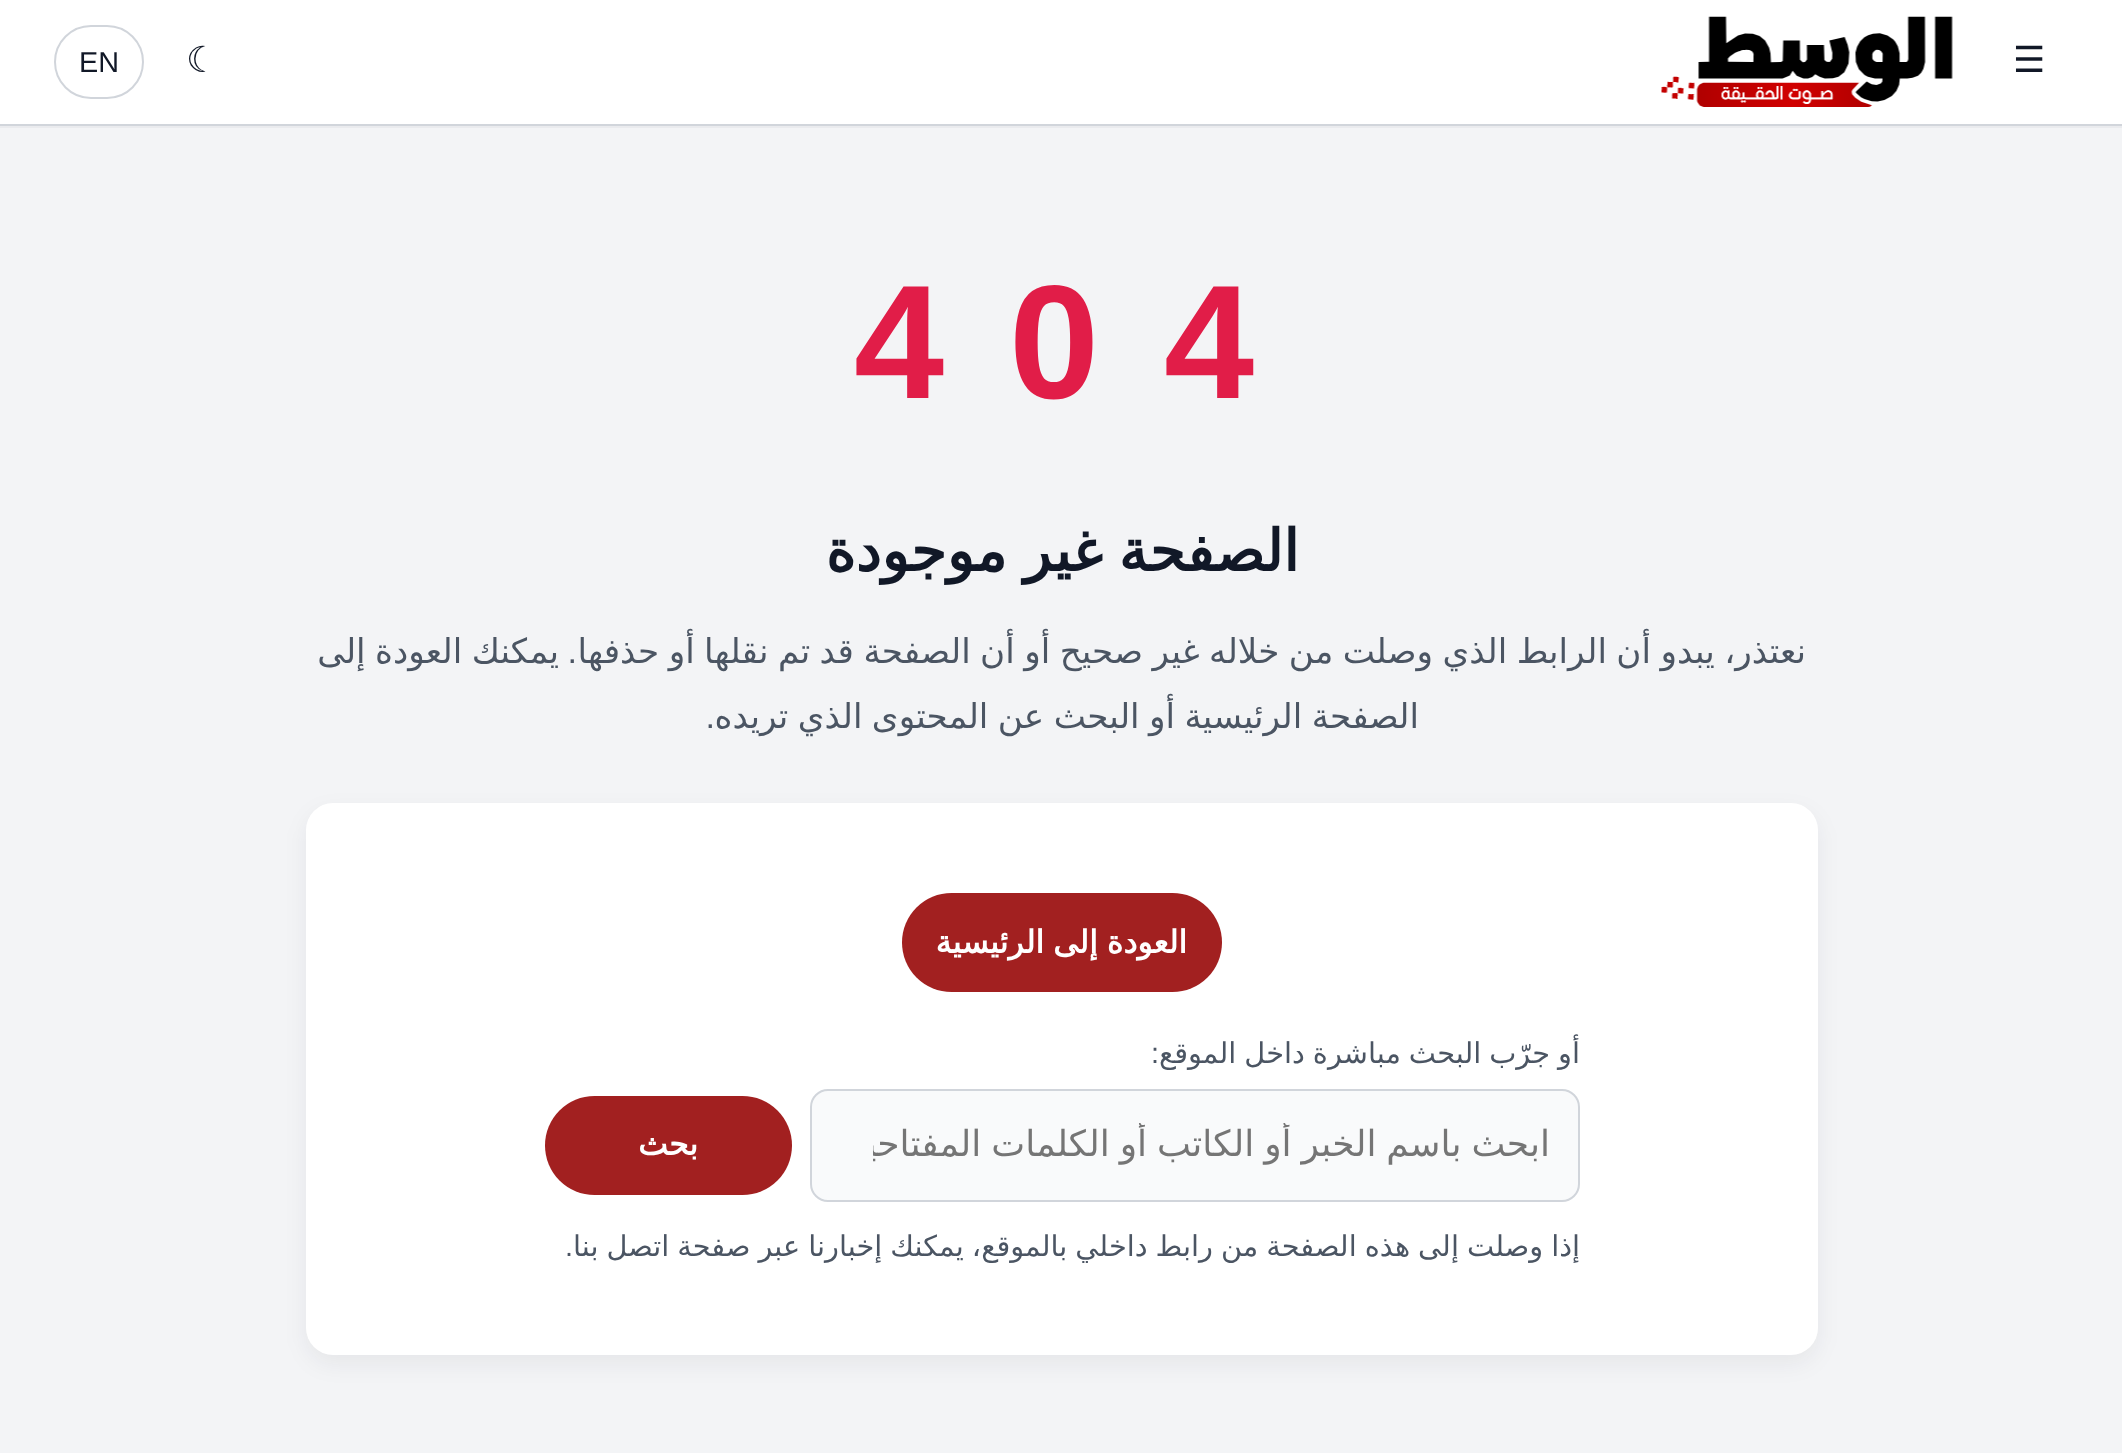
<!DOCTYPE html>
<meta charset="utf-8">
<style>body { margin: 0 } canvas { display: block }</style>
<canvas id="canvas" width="2122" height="1453"></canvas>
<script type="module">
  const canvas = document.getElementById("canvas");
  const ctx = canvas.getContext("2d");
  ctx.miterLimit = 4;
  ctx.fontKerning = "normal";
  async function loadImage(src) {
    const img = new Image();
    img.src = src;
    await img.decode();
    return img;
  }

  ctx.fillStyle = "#f3f4f6";
  ctx.fillRect(0, 0, 2122, 1453);
  ctx.fillStyle = "#eaebee";
  ctx.fillRect(0, 126, 2122, 2);
  ctx.fillStyle = "#ffffff";
  ctx.fillRect(0, 0, 2122, 124);
  ctx.fillStyle = "#d1d5db";
  ctx.fillRect(0, 124, 2122, 2);
  ctx.font = "36px DejaVu Sans";
  ctx.fillStyle = "#111827";
  ctx.fillText("☰", 2013, 72);
  ctx.drawImage(await loadImage("img1.png"), 1661, 16, 292, 91);
  ctx.fillText("☾", 186, 72);
  ctx.beginPath();
  ctx.roundRect(55, 26, 88, 72, 36);
  ctx.strokeStyle = "#d1d5db";
  ctx.lineWidth = 2;
  ctx.stroke();
  ctx.font = "28.8px Liberation Sans";
  ctx.fillText("EN", 79, 72);
  ctx.letterSpacing = "16px";
  ctx.font = "bold 162px Liberation Sans";
  ctx.fillStyle = "#e11d48";
  ctx.fillText("4", 1164, 398);
  ctx.fillText("0", 1009, 398);
  ctx.fillText("4", 854, 398);
  ctx.letterSpacing = "0px";
  ctx.wordSpacing = "-2px";
  ctx.direction = "rtl";
  ctx.font = "bold 57.5px DejaVu Sans";
  ctx.fillStyle = "#111827";
  ctx.fillText("الصفحة غير موجودة", 1299, 571);
  ctx.wordSpacing = "-1.4px";
  ctx.font = "34.2px DejaVu Sans";
  ctx.fillStyle = "#4b5563";
  ctx.fillText("نعتذر، يبدو أن الرابط الذي وصلت من خلاله غير صحيح أو أن الصفحة قد تم نقلها أو حذفها", 1806, 663);
  ctx.wordSpacing = "0px";
  ctx.font = "34.2px Liberation Sans";
  ctx.fillText(".", 577, 663);
  ctx.wordSpacing = "-1.4px";
  ctx.font = "34.2px DejaVu Sans";
  ctx.fillText("يمكنك العودة إلى", 559, 663);
  ctx.fillText("الصفحة الرئيسية أو البحث عن المحتوى الذي تريده", 1419, 728);
  ctx.wordSpacing = "0px";
  ctx.font = "34.2px Liberation Sans";
  ctx.fillText(".", 715, 728);
  ctx.fillStyle = "rgba(15, 23, 42, 0.06)";
  ctx.filter = "blur(11px)";
  ctx.beginPath();
  ctx.roundRect(306, 812, 1512, 552, 27);
  ctx.fill();
  ctx.filter = "none";
  ctx.fillStyle = "#ffffff";
  ctx.beginPath();
  ctx.roundRect(306, 803, 1512, 552, 27);
  ctx.fill();
  ctx.fillStyle = "#a22020";
  ctx.beginPath();
  ctx.roundRect(902, 893, 320, 99, 49.5);
  ctx.fill();
  ctx.wordSpacing = "-1px";
  ctx.font = "bold 31.5px DejaVu Sans";
  ctx.fillStyle = "#ffffff";
  ctx.fillText("العودة إلى الرئيسية", 1187, 953);
  ctx.wordSpacing = "-1.1px";
  ctx.font = "28.8px DejaVu Sans";
  ctx.fillStyle = "#4b5563";
  ctx.fillText("أو جرّب البحث مباشرة داخل الموقع", 1580, 1063);
  ctx.wordSpacing = "0px";
  ctx.font = "28.8px Liberation Sans";
  ctx.fillText(":", 1159, 1063);
  ctx.fillStyle = "#f9fafb";
  ctx.beginPath();
  ctx.roundRect(811, 1090, 768, 111, 17);
  ctx.fill();
  ctx.stroke();
  ctx.save();
  ctx.beginPath();
  ctx.rect(873, 1123, 677, 43);
  ctx.clip();
  ctx.wordSpacing = "-1.5px";
  ctx.font = "36px DejaVu Sans";
  ctx.fillStyle = "#757575";
  ctx.fillText("ابحث باسم الخبر أو الكاتب أو الكلمات المفتاحية", 1550, 1156);
  ctx.restore();
  ctx.fillStyle = "#a22020";
  ctx.beginPath();
  ctx.roundRect(545, 1096, 247, 99, 49.5);
  ctx.fill();
  ctx.font = "bold 31.5px DejaVu Sans";
  ctx.fillStyle = "#ffffff";
  ctx.fillText("بحث", 698, 1155);
  ctx.wordSpacing = "-1.1px";
  ctx.font = "28.8px DejaVu Sans";
  ctx.fillStyle = "#4b5563";
  ctx.fillText("إذا وصلت إلى هذه الصفحة من رابط داخلي بالموقع، يمكنك إخبارنا عبر صفحة اتصل بنا", 1580, 1256);
  ctx.wordSpacing = "0px";
  ctx.font = "28.8px Liberation Sans";
  ctx.fillText(".", 573, 1256);
</script>
